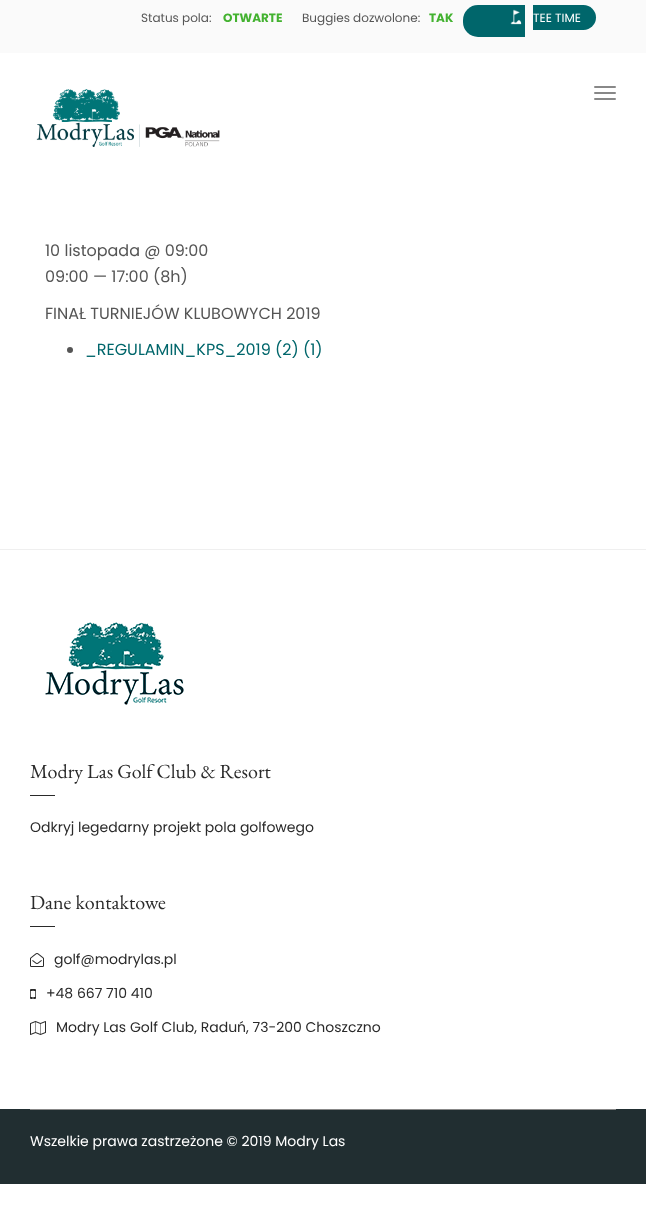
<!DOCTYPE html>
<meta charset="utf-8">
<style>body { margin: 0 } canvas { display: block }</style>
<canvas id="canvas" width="646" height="1218"></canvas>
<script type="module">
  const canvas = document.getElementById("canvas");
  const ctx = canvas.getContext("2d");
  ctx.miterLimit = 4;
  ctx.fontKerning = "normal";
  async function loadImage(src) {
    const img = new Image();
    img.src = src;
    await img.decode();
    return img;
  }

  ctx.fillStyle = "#ffffff";
  ctx.fillRect(0, 0, 646, 1218);
  ctx.fillStyle = "#fafafa";
  ctx.fillRect(0, 0, 646, 53);
  ctx.font = "12px Poppins";
  ctx.fillStyle = "#555555";
  ctx.fillText("Status pola:", 141, 22);
  ctx.font = "bold 12px Poppins";
  ctx.fillStyle = "#43b230";
  ctx.fillText("OTWARTE", 223, 22);
  ctx.font = "12px Poppins";
  ctx.fillStyle = "#555555";
  ctx.fillText("Buggies dozwolone:", 302, 22);
  ctx.font = "bold 12px Poppins";
  ctx.fillStyle = "#43b230";
  ctx.fillText("TAK", 429, 22);
  ctx.fillStyle = "#00666b";
  ctx.beginPath();
  ctx.roundRect(463, 5, 62, 32, [15, 0, 0, 15]);
  ctx.fill();
  ctx.beginPath();
  ctx.roundRect(533, 5, 63, 25, [0, 12.5, 12.5, 0]);
  ctx.fill();
  ctx.drawImage(await loadImage("img1.png"), 510, 9, 12, 16);
  ctx.font = "12px Poppins";
  ctx.fillStyle = "#ffffff";
  ctx.fillText("TEE TIME", 533, 22);
  ctx.drawImage(await loadImage("img2.png"), 36, 89, 184, 58);
  ctx.fillStyle = "#888888";
  ctx.beginPath();
  ctx.roundRect(594, 86, 22, 2, 1);
  ctx.fill();
  ctx.beginPath();
  ctx.roundRect(594, 92, 22, 2, 1);
  ctx.fill();
  ctx.beginPath();
  ctx.roundRect(594, 98, 22, 2, 1);
  ctx.fill();
  ctx.font = "16px Poppins";
  ctx.fillStyle = "#555555";
  ctx.fillText("10 listopada @ 09:00", 45, 256);
  ctx.fillText("09:00 — 17:00 (8h)", 45, 282);
  ctx.fillText("FINAŁ TURNIEJÓW KLUBOWYCH 2019", 45, 319);
  ctx.beginPath();
  ctx.arc(70, 350, 3, 0, Math.PI * 2);
  ctx.fill();
  ctx.fillStyle = "#00666b";
  ctx.fillText("_REGULAMIN_KPS_2019 (2) (1)", 85, 355);
  ctx.fillStyle = "#efefef";
  ctx.fillRect(0, 549, 646, 1);
  ctx.drawImage(await loadImage("img3.png"), 45, 622, 139, 83);
  ctx.font = "20px EB Garamond";
  ctx.fillStyle = "#2a2a2a";
  ctx.fillText("Modry Las Golf Club & Resort", 30, 778);
  ctx.fillRect(30, 795, 25, 1);
  ctx.font = "14px Poppins";
  ctx.fillText("Odkryj legedarny projekt pola golfowego", 30, 832);
  ctx.font = "20px EB Garamond";
  ctx.fillText("Dane kontaktowe", 30, 909);
  ctx.fillRect(30, 926, 25, 1);
  ctx.drawImage(await loadImage("img4.png"), 30, 953, 14, 14);
  ctx.font = "14px Poppins";
  ctx.fillText("golf@modrylas.pl", 54, 964);
  ctx.drawImage(await loadImage("img5.png"), 30, 989, 6, 10);
  ctx.fillText("+48 667 710 410", 46, 998);
  ctx.drawImage(await loadImage("img6.png"), 30, 1021, 16, 14);
  ctx.fillText("Modry Las Golf Club, Raduń, 73-200 Choszczno", 56, 1032);
  ctx.fillStyle = "#212e31";
  ctx.fillRect(0, 1109, 646, 75);
  ctx.fillStyle = "#888888";
  ctx.fillRect(30, 1109, 586, 1);
  ctx.fillStyle = "#ffffff";
  ctx.fillText("Wszelkie prawa zastrzeżone © 2019 Modry Las", 30, 1146);
</script>
